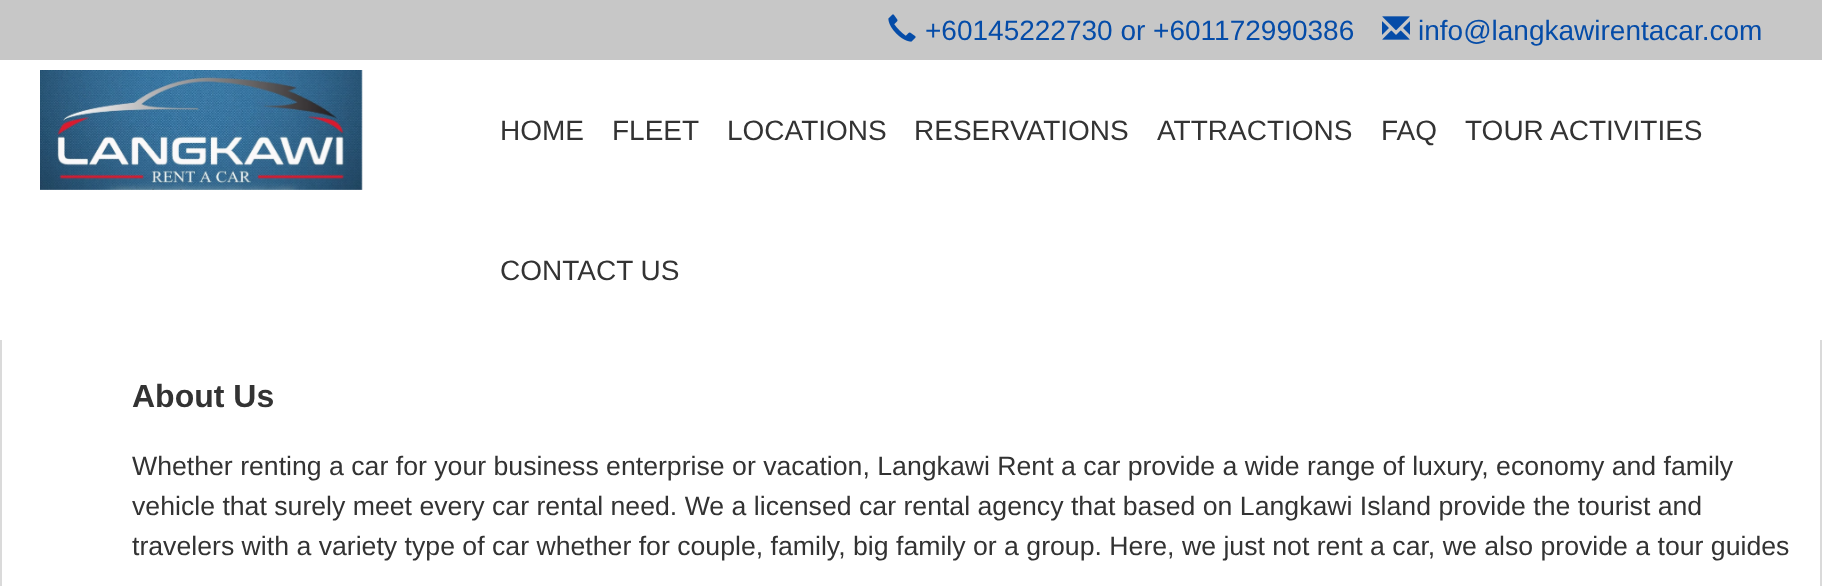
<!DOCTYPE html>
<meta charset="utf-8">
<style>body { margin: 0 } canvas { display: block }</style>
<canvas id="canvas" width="1822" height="586"></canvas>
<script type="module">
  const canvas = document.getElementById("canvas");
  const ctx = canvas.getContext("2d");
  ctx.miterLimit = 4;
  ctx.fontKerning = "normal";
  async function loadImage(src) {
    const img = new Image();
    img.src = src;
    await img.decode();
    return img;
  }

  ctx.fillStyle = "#ffffff";
  ctx.fillRect(0, 0, 1822, 586);
  ctx.fillStyle = "#dadada";
  ctx.fillRect(1820, 338, 2, 248);
  ctx.fillRect(0, 338, 2, 248);
  ctx.fillStyle = "#ffffff";
  ctx.fillRect(0, 338, 1822, 2);
  ctx.fillStyle = "#c7c7c7";
  ctx.fillRect(0, 0, 1822, 60);
  ctx.drawImage(await loadImage("img1.png"), 888, 14, 28, 28);
  ctx.font = "28px Liberation Sans";
  ctx.fillStyle = "#054ca8";
  ctx.fillText("+60145222730 or +601172990386", 925, 40);
  ctx.drawImage(await loadImage("img2.png"), 1382, 16, 28, 24);
  ctx.fillText("info@langkawirentacar.com", 1418, 40);
  ctx.drawImage(await loadImage("img3.png"), 40, 70, 323, 120);
  ctx.fillStyle = "#333333";
  ctx.fillText("HOME", 500, 140);
  ctx.fillText("FLEET", 612, 140);
  ctx.fillText("LOCATIONS", 727, 140);
  ctx.fillText("RESERVATIONS", 914, 140);
  ctx.fillText("ATTRACTIONS", 1157, 140);
  ctx.fillText("FAQ", 1381, 140);
  ctx.fillText("TOUR ACTIVITIES", 1465, 140);
  ctx.fillText("CONTACT US", 500, 280);
  ctx.font = "bold 32px Liberation Sans";
  ctx.fillText("About Us", 132, 407);
  ctx.font = "26.67px Liberation Sans";
  ctx.fillText("Whether renting a car for your business enterprise or vacation, Langkawi Rent a car provide a wide range of luxury, economy and family", 132, 475);
  ctx.fillText("vehicle that surely meet every car rental need. We a licensed car rental agency that based on Langkawi Island provide the tourist and", 132, 515);
  ctx.fillText("travelers with a variety type of car whether for couple, family, big family or a group. Here, we just not rent a car, we also provide a tour guides", 132, 555);
</script>
